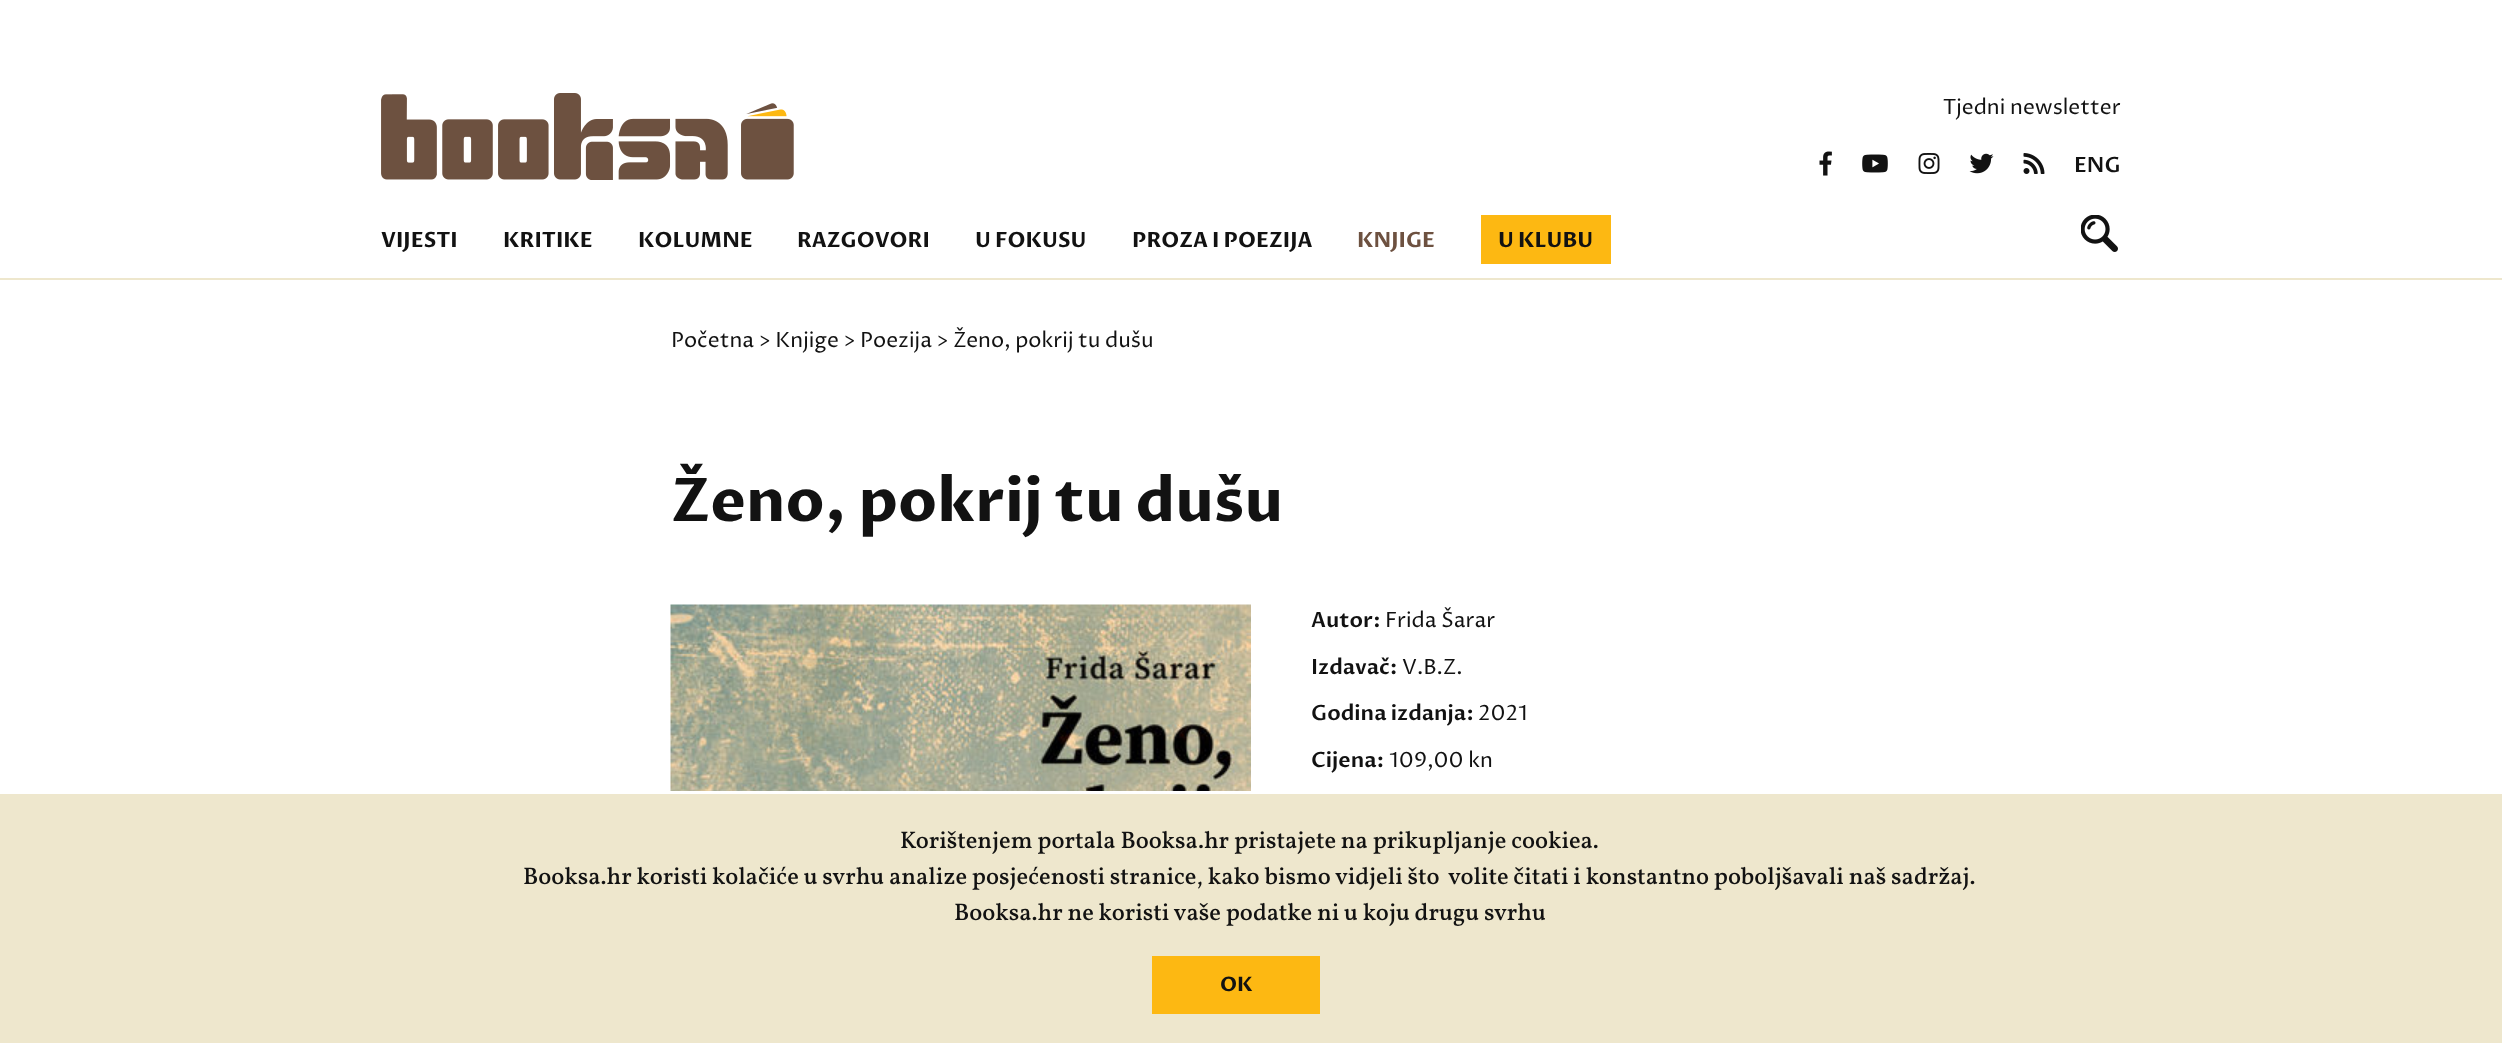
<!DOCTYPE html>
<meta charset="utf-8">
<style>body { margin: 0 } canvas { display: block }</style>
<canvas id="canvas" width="2502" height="1043"></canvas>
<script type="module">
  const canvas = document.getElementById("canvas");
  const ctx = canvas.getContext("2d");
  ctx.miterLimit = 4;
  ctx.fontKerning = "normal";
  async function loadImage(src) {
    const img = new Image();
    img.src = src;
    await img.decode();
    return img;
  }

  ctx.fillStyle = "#ffffff";
  ctx.fillRect(0, 0, 2502, 1043);
  ctx.fillStyle = "#eee7cd";
  ctx.fillRect(0, 278, 2502, 2);
  ctx.drawImage(await loadImage("img1.png"), 381, 93, 413, 87);
  ctx.font = "21px Proza Libre";
  ctx.fillStyle = "#121212";
  ctx.fillText("Tjedni newsletter", 1943, 114);
  ctx.drawImage(await loadImage("img2.png"), 1819, 151, 13, 25);
  ctx.drawImage(await loadImage("img3.png"), 1862, 154, 26, 19);
  ctx.drawImage(await loadImage("img4.png"), 1918, 153, 22, 21);
  ctx.drawImage(await loadImage("img5.png"), 1969, 153, 25, 21);
  ctx.drawImage(await loadImage("img6.png"), 2023, 153, 22, 21);
  ctx.font = "600 21px Proza Libre";
  ctx.fillText("ENG", 2074, 172);
  ctx.font = "bold 21px Proza Libre";
  ctx.fillText("VIJESTI", 381, 247);
  ctx.fillText("KRITIKE", 503, 247);
  ctx.fillText("KOLUMNE", 638, 247);
  ctx.fillText("RAZGOVORI", 797, 247);
  ctx.fillText("U FOKUSU", 975, 247);
  ctx.fillText("PROZA I POEZIJA", 1132, 247);
  ctx.fillStyle = "#6d5140";
  ctx.fillText("KNJIGE", 1357, 247);
  ctx.fillStyle = "#fdb812";
  ctx.fillRect(1481, 215, 130, 49);
  ctx.fillStyle = "#121212";
  ctx.fillText("U KLUBU", 1498, 247);
  ctx.drawImage(await loadImage("img7.png"), 2081, 215, 37, 37);
  ctx.font = "21px Proza Libre";
  ctx.fillText("Početna > Knjige > Poezija > Ženo, pokrij tu dušu", 671, 347);
  ctx.font = "bold 60px Proza Libre";
  ctx.fillText("Ženo, pokrij tu dušu", 671, 521);
  ctx.drawImage(await loadImage("img8.png"), 670, 604, 581, 187);
  ctx.font = "600 21px Proza Libre";
  ctx.fillText("Autor:", 1311, 627);
  ctx.font = "21px Proza Libre";
  ctx.fillText("Frida Šarar", 1385, 627);
  ctx.font = "600 21px Proza Libre";
  ctx.fillText("Izdavač:", 1311, 674);
  ctx.font = "21px Proza Libre";
  ctx.fillText("V.B.Z.", 1402, 674);
  ctx.font = "600 21px Proza Libre";
  ctx.fillText("Godina izdanja:", 1311, 720);
  ctx.font = "21px Proza Libre";
  ctx.fillText("2021", 1478, 720);
  ctx.font = "600 21px Proza Libre";
  ctx.fillText("Cijena:", 1311, 767);
  ctx.font = "21px Proza Libre";
  ctx.fillText("109,00 kn", 1389, 767);
  ctx.fillStyle = "#eee7cd";
  ctx.fillRect(0, 794, 2502, 249);
  ctx.font = "500 24px Vollkorn";
  ctx.fillStyle = "#121212";
  ctx.fillText("Korištenjem portala Booksa.hr pristajete na prikupljanje cookiea.", 900, 848);
  ctx.fillText("Booksa.hr koristi kolačiće u svrhu analize posjećenosti stranice, kako bismo vidjeli što", 523, 884);
  ctx.fillText("volite čitati i konstantno poboljšavali naš sadržaj.", 1448, 884);
  ctx.fillText("Booksa.hr ne koristi vaše podatke ni u koju drugu svrhu", 954, 920);
  ctx.fillStyle = "#fdb812";
  ctx.fillRect(1152, 956, 168, 58);
  ctx.font = "bold 20px Proza Libre";
  ctx.fillStyle = "#121212";
  ctx.fillText("OK", 1220, 991);
</script>
